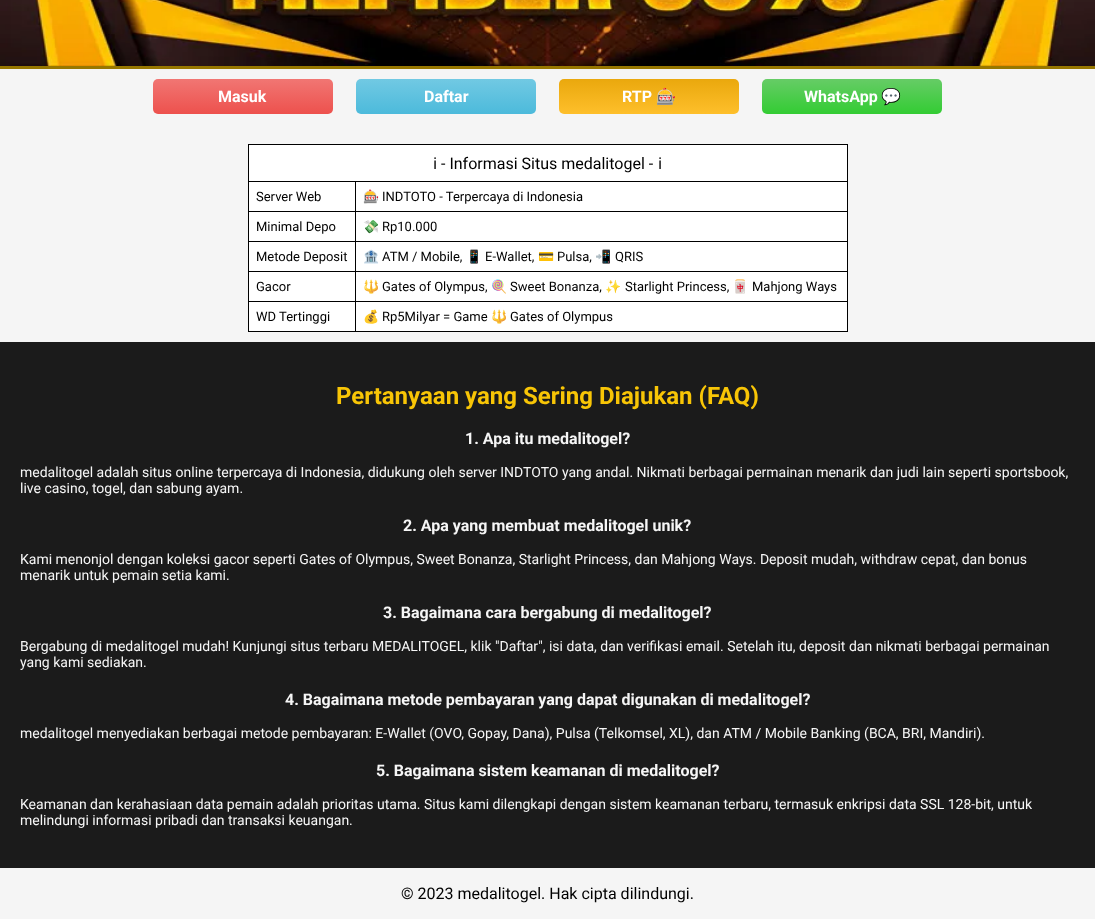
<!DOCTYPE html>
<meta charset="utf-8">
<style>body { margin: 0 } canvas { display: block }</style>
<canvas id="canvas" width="1095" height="919"></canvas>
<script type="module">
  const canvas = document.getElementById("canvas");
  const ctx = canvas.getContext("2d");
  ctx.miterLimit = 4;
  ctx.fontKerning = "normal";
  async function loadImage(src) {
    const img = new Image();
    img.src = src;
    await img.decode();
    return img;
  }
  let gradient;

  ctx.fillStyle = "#f5f5f5";
  ctx.fillRect(0, 0, 1095, 919);
  ctx.drawImage(await loadImage("img1.png"), 0, 0, 1095, 66);
  ctx.fillStyle = "#977700";
  ctx.fillRect(0, 66, 1095, 3);
  gradient = ctx.createLinearGradient(243, 79, 243, 114);
  gradient.addColorStop(0, "#f17673");
  gradient.addColorStop(1, "#ed514d");
  ctx.fillStyle = gradient;
  ctx.beginPath();
  ctx.roundRect(153, 79, 180, 35, 5);
  ctx.fill();
  ctx.font = "bold 16px Roboto";
  ctx.fillStyle = "#ffffff";
  ctx.fillText("Masuk", 218, 102);
  gradient = ctx.createLinearGradient(446, 79, 446, 114);
  gradient.addColorStop(0, "#71c9e3");
  gradient.addColorStop(1, "#4cbadb");
  ctx.fillStyle = gradient;
  ctx.beginPath();
  ctx.roundRect(356, 79, 180, 35, 5);
  ctx.fill();
  ctx.fillStyle = "#ffffff";
  ctx.fillText("Daftar", 424, 102);
  gradient = ctx.createLinearGradient(649, 79, 649, 114);
  gradient.addColorStop(0, "#eaa80d");
  gradient.addColorStop(1, "#febf2b");
  ctx.fillStyle = gradient;
  ctx.beginPath();
  ctx.roundRect(559, 79, 180, 35, 5);
  ctx.fill();
  ctx.fillStyle = "#ffffff";
  ctx.fillText("RTP", 622, 102);
  ctx.font = "bold 16px Noto Color Emoji";
  ctx.fillText("🎰", 656, 102);
  gradient = ctx.createLinearGradient(852, 79, 852, 114);
  gradient.addColorStop(0, "#66cc66");
  gradient.addColorStop(1, "#33cc33");
  ctx.fillStyle = gradient;
  ctx.beginPath();
  ctx.roundRect(762, 79, 180, 35, 5);
  ctx.fill();
  ctx.font = "bold 16px Roboto";
  ctx.fillStyle = "#ffffff";
  ctx.fillText("WhatsApp", 804, 102);
  ctx.font = "bold 16px Noto Color Emoji";
  ctx.fillText("💬", 881, 102);
  ctx.fillRect(249, 145, 598, 186);
  ctx.fillStyle = "#000000";
  ctx.fillRect(248, 144, 600, 1);
  ctx.fillRect(355, 181, 493, 1);
  ctx.fillRect(355, 211, 493, 1);
  ctx.fillRect(355, 241, 493, 1);
  ctx.fillRect(355, 271, 493, 1);
  ctx.fillRect(355, 301, 493, 1);
  ctx.fillRect(847, 301, 1, 31);
  ctx.fillRect(847, 271, 1, 31);
  ctx.fillRect(847, 241, 1, 31);
  ctx.fillRect(847, 211, 1, 31);
  ctx.fillRect(847, 181, 1, 31);
  ctx.fillRect(847, 144, 1, 38);
  ctx.fillRect(355, 331, 493, 1);
  ctx.fillRect(355, 301, 1, 31);
  ctx.fillRect(248, 301, 108, 1);
  ctx.fillRect(355, 271, 1, 31);
  ctx.fillRect(248, 271, 108, 1);
  ctx.fillRect(355, 241, 1, 31);
  ctx.fillRect(248, 241, 108, 1);
  ctx.fillRect(355, 211, 1, 31);
  ctx.fillRect(248, 211, 108, 1);
  ctx.fillRect(355, 181, 1, 31);
  ctx.fillRect(248, 181, 108, 1);
  ctx.fillRect(248, 331, 108, 1);
  ctx.fillRect(248, 301, 1, 31);
  ctx.fillRect(248, 271, 1, 31);
  ctx.fillRect(248, 241, 1, 31);
  ctx.fillRect(248, 211, 1, 31);
  ctx.fillRect(248, 181, 1, 31);
  ctx.fillRect(248, 144, 1, 38);
  ctx.font = "16px Noto Sans";
  ctx.fillText("ℹ", 433, 169);
  ctx.font = "16px Roboto";
  ctx.fillText("- Informasi Situs medalitogel -", 441, 169);
  ctx.font = "16px Noto Sans";
  ctx.fillText("ℹ", 658, 169);
  ctx.font = "13px Roboto";
  ctx.fillText("Server Web", 256, 201);
  ctx.font = "13px Noto Color Emoji";
  ctx.fillText("🎰", 363, 201);
  ctx.font = "13px Roboto";
  ctx.fillText("INDTOTO - Terpercaya di Indonesia", 382, 201);
  ctx.fillText("Minimal Depo", 256, 231);
  ctx.font = "13px Noto Color Emoji";
  ctx.fillText("💸", 363, 231);
  ctx.font = "13px Roboto";
  ctx.fillText("Rp10.000", 382, 231);
  ctx.fillText("Metode Deposit", 256, 261);
  ctx.font = "13px Noto Color Emoji";
  ctx.fillText("🏦", 363, 261);
  ctx.font = "13px Roboto";
  ctx.fillText("ATM / Mobile,", 382, 261);
  ctx.font = "13px Noto Color Emoji";
  ctx.fillText("📱", 466, 261);
  ctx.font = "13px Roboto";
  ctx.fillText("E-Wallet,", 485, 261);
  ctx.font = "13px Noto Color Emoji";
  ctx.fillText("💳", 538, 261);
  ctx.font = "13px Roboto";
  ctx.fillText("Pulsa,", 557, 261);
  ctx.font = "13px Noto Color Emoji";
  ctx.fillText("📲", 595, 261);
  ctx.font = "13px Roboto";
  ctx.fillText("QRIS", 615, 261);
  ctx.fillText("Gacor", 256, 291);
  ctx.font = "13px Noto Color Emoji";
  ctx.fillText("🔱", 363, 291);
  ctx.font = "13px Roboto";
  ctx.fillText("Gates of Olympus,", 382, 291);
  ctx.font = "13px Noto Color Emoji";
  ctx.fillText("🍭", 491, 291);
  ctx.font = "13px Roboto";
  ctx.fillText("Sweet Bonanza,", 510, 291);
  ctx.font = "13px Noto Color Emoji";
  ctx.fillText("✨", 605, 291);
  ctx.font = "13px Roboto";
  ctx.fillText("Starlight Princess,", 625, 291);
  ctx.font = "13px Noto Color Emoji";
  ctx.fillText("🀄", 732, 291);
  ctx.font = "13px Roboto";
  ctx.fillText("Mahjong Ways", 752, 291);
  ctx.fillText("WD Tertinggi", 256, 321);
  ctx.font = "13px Noto Color Emoji";
  ctx.fillText("💰", 363, 321);
  ctx.font = "13px Roboto";
  ctx.fillText("Rp5Milyar = Game", 382, 321);
  ctx.font = "13px Noto Color Emoji";
  ctx.fillText("🔱", 491, 321);
  ctx.font = "13px Roboto";
  ctx.fillText("Gates of Olympus", 510, 321);
  ctx.fillStyle = "#1b1b1b";
  ctx.fillRect(0, 342, 1095, 526);
  ctx.font = "bold 24px Roboto";
  ctx.fillStyle = "#f8c506";
  ctx.fillText("Pertanyaan yang Sering Diajukan (FAQ)", 336, 404);
  ctx.font = "bold 16px Roboto";
  ctx.fillStyle = "#f6f6f6";
  ctx.fillText("1. Apa itu medalitogel?", 465, 444);
  ctx.font = "14px Roboto";
  ctx.fillText("medalitogel adalah situs online terpercaya di Indonesia, didukung oleh server INDTOTO yang andal. Nikmati berbagai permainan menarik dan judi lain seperti sportsbook,", 20, 477);
  ctx.fillText("live casino, togel, dan sabung ayam.", 20, 493);
  ctx.font = "bold 16px Roboto";
  ctx.fillText("2. Apa yang membuat medalitogel unik?", 403, 531);
  ctx.font = "14px Roboto";
  ctx.fillText("Kami menonjol dengan koleksi gacor seperti Gates of Olympus, Sweet Bonanza, Starlight Princess, dan Mahjong Ways. Deposit mudah, withdraw cepat, dan bonus", 20, 564);
  ctx.fillText("menarik untuk pemain setia kami.", 20, 580);
  ctx.font = "bold 16px Roboto";
  ctx.fillText("3. Bagaimana cara bergabung di medalitogel?", 383, 618);
  ctx.font = "14px Roboto";
  ctx.fillText("Bergabung di medalitogel mudah! Kunjungi situs terbaru MEDALITOGEL, klik \"Daftar\", isi data, dan verifikasi email. Setelah itu, deposit dan nikmati berbagai permainan", 20, 651);
  ctx.fillText("yang kami sediakan.", 20, 667);
  ctx.font = "bold 16px Roboto";
  ctx.fillText("4. Bagaimana metode pembayaran yang dapat digunakan di medalitogel?", 285, 705);
  ctx.font = "14px Roboto";
  ctx.fillText("medalitogel menyediakan berbagai metode pembayaran: E-Wallet (OVO, Gopay, Dana), Pulsa (Telkomsel, XL), dan ATM / Mobile Banking (BCA, BRI, Mandiri).", 20, 738);
  ctx.font = "bold 16px Roboto";
  ctx.fillText("5. Bagaimana sistem keamanan di medalitogel?", 376, 776);
  ctx.font = "14px Roboto";
  ctx.fillText("Keamanan dan kerahasiaan data pemain adalah prioritas utama. Situs kami dilengkapi dengan sistem keamanan terbaru, termasuk enkripsi data SSL 128-bit, untuk", 20, 809);
  ctx.fillText("melindungi informasi pribadi dan transaksi keuangan.", 20, 825);
  ctx.font = "16px Roboto";
  ctx.fillStyle = "#000000";
  ctx.fillText("© 2023 medalitogel. Hak cipta dilindungi.", 401, 899);
</script>
